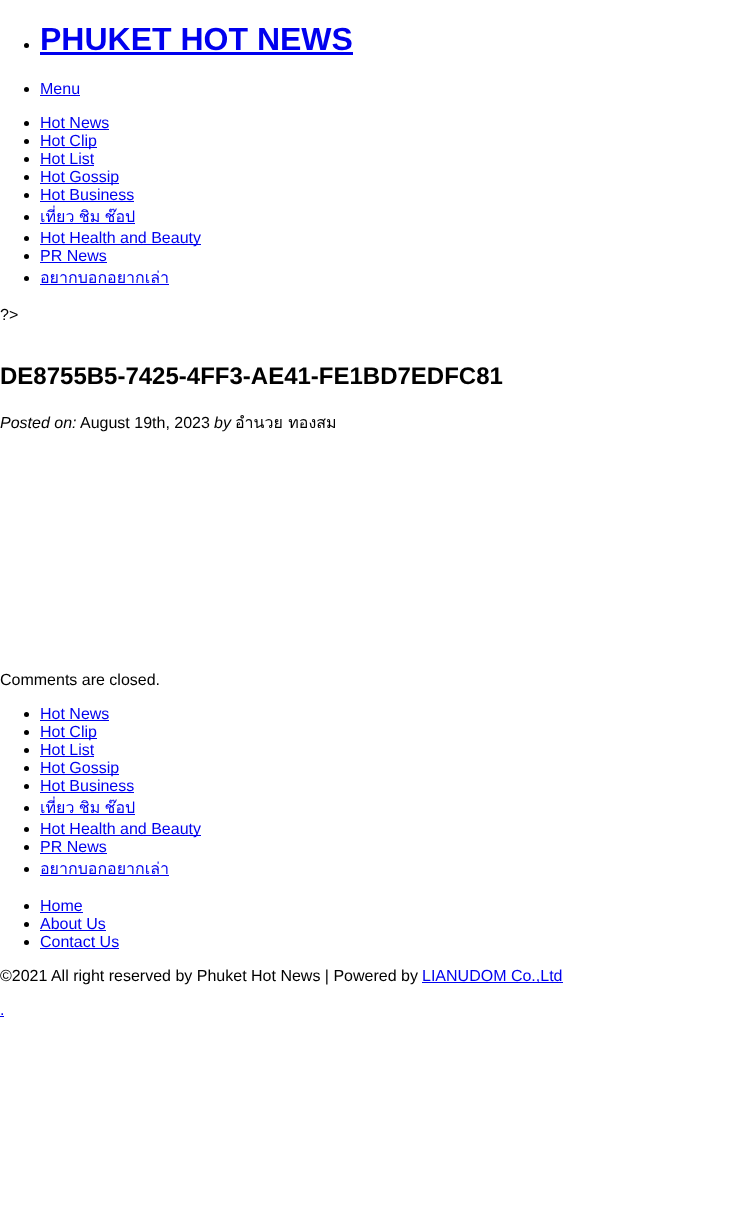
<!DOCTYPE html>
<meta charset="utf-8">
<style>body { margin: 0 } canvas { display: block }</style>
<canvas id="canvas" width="743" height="1213"></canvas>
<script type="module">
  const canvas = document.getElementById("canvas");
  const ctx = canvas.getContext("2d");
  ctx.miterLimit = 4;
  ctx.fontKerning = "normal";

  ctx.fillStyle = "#ffffff";
  ctx.fillRect(0, 0, 743, 1213);
  ctx.fillStyle = "#000000";
  ctx.beginPath();
  ctx.arc(26.5, 45.5, 2.5, 0, Math.PI * 2);
  ctx.fill();
  ctx.font = "bold 32px Liberation Sans";
  ctx.fillStyle = "#0000ee";
  ctx.fillText("PHUKET HOT NEWS", 40, 50);
  ctx.fillRect(40, 52, 313, 3);
  ctx.fillStyle = "#000000";
  ctx.beginPath();
  ctx.arc(26.5, 89.5, 2.5, 0, Math.PI * 2);
  ctx.fill();
  ctx.font = "16px Liberation Sans";
  ctx.fillStyle = "#0000ee";
  ctx.fillText("Menu", 40, 94);
  ctx.fillRect(40, 95, 40, 1);
  ctx.fillStyle = "#000000";
  ctx.beginPath();
  ctx.arc(26.5, 123.5, 2.5, 0, Math.PI * 2);
  ctx.fill();
  ctx.fillStyle = "#0000ee";
  ctx.fillText("Hot News", 40, 128);
  ctx.fillRect(40, 129, 69, 1);
  ctx.fillStyle = "#000000";
  ctx.beginPath();
  ctx.arc(26.5, 141.5, 2.5, 0, Math.PI * 2);
  ctx.fill();
  ctx.fillStyle = "#0000ee";
  ctx.fillRect(40, 147, 57, 1);
  ctx.fillText("Hot Clip", 40, 146);
  ctx.fillStyle = "#000000";
  ctx.beginPath();
  ctx.arc(26.5, 159.5, 2.5, 0, Math.PI * 2);
  ctx.fill();
  ctx.fillStyle = "#0000ee";
  ctx.fillText("Hot List", 40, 164);
  ctx.fillRect(40, 165, 54, 1);
  ctx.fillStyle = "#000000";
  ctx.beginPath();
  ctx.arc(26.5, 177.5, 2.5, 0, Math.PI * 2);
  ctx.fill();
  ctx.fillStyle = "#0000ee";
  ctx.fillRect(40, 183, 79, 1);
  ctx.fillText("Hot Gossip", 40, 182);
  ctx.fillStyle = "#000000";
  ctx.beginPath();
  ctx.arc(26.5, 195.5, 2.5, 0, Math.PI * 2);
  ctx.fill();
  ctx.fillStyle = "#0000ee";
  ctx.fillText("Hot Business", 40, 200);
  ctx.fillRect(40, 201, 94, 1);
  ctx.fillStyle = "#000000";
  ctx.beginPath();
  ctx.arc(26.5, 217.5, 2.5, 0, Math.PI * 2);
  ctx.fill();
  ctx.wordSpacing = "-1px";
  ctx.font = "16px Loma";
  ctx.fillStyle = "#0000ee";
  ctx.fillText("เที่ยว ชิม ช๊อป", 40, 222);
  ctx.fillRect(40, 223, 95, 1);
  ctx.fillStyle = "#000000";
  ctx.beginPath();
  ctx.arc(26.5, 238.5, 2.5, 0, Math.PI * 2);
  ctx.fill();
  ctx.fillStyle = "#0000ee";
  ctx.fillRect(40, 244, 161, 1);
  ctx.wordSpacing = "0px";
  ctx.font = "16px Liberation Sans";
  ctx.fillText("Hot Health and Beauty", 40, 243);
  ctx.fillStyle = "#000000";
  ctx.beginPath();
  ctx.arc(26.5, 256.5, 2.5, 0, Math.PI * 2);
  ctx.fill();
  ctx.fillStyle = "#0000ee";
  ctx.fillText("PR News", 40, 261);
  ctx.fillRect(40, 262, 67, 1);
  ctx.fillStyle = "#000000";
  ctx.beginPath();
  ctx.arc(26.5, 278.5, 2.5, 0, Math.PI * 2);
  ctx.fill();
  ctx.font = "16px Loma";
  ctx.fillStyle = "#0000ee";
  ctx.fillText("อยากบอกอยากเล่า", 40, 283);
  ctx.fillRect(40, 284, 129, 1);
  ctx.font = "16px Liberation Sans";
  ctx.fillStyle = "#000000";
  ctx.fillText("?>", 0, 320);
  ctx.font = "bold 24px Liberation Sans";
  ctx.fillText("DE8755B5-7425-4FF3-AE41-FE1BD7EDFC81", 0, 384);
  ctx.font = "italic 16px Liberation Sans";
  ctx.fillText("Posted on:", 0, 428);
  ctx.font = "16px Liberation Sans";
  ctx.fillText("August 19th, 2023", 80, 428);
  ctx.font = "italic 16px Liberation Sans";
  ctx.fillText("by", 214, 428);
  ctx.font = "16px Loma";
  ctx.fillText("อำนวย ทองสม", 235, 428);
  ctx.font = "16px Liberation Sans";
  ctx.fillText("Comments are closed.", 0, 685);
  ctx.beginPath();
  ctx.arc(26.5, 714.5, 2.5, 0, Math.PI * 2);
  ctx.fill();
  ctx.fillStyle = "#0000ee";
  ctx.fillText("Hot News", 40, 719);
  ctx.fillRect(40, 720, 69, 1);
  ctx.fillStyle = "#000000";
  ctx.beginPath();
  ctx.arc(26.5, 732.5, 2.5, 0, Math.PI * 2);
  ctx.fill();
  ctx.fillStyle = "#0000ee";
  ctx.fillRect(40, 738, 57, 1);
  ctx.fillText("Hot Clip", 40, 737);
  ctx.fillStyle = "#000000";
  ctx.beginPath();
  ctx.arc(26.5, 750.5, 2.5, 0, Math.PI * 2);
  ctx.fill();
  ctx.fillStyle = "#0000ee";
  ctx.fillText("Hot List", 40, 755);
  ctx.fillRect(40, 756, 54, 1);
  ctx.fillStyle = "#000000";
  ctx.beginPath();
  ctx.arc(26.5, 768.5, 2.5, 0, Math.PI * 2);
  ctx.fill();
  ctx.fillStyle = "#0000ee";
  ctx.fillRect(40, 774, 79, 1);
  ctx.fillText("Hot Gossip", 40, 773);
  ctx.fillStyle = "#000000";
  ctx.beginPath();
  ctx.arc(26.5, 786.5, 2.5, 0, Math.PI * 2);
  ctx.fill();
  ctx.fillStyle = "#0000ee";
  ctx.fillText("Hot Business", 40, 791);
  ctx.fillRect(40, 792, 94, 1);
  ctx.fillStyle = "#000000";
  ctx.beginPath();
  ctx.arc(26.5, 808.5, 2.5, 0, Math.PI * 2);
  ctx.fill();
  ctx.wordSpacing = "-1px";
  ctx.font = "16px Loma";
  ctx.fillStyle = "#0000ee";
  ctx.fillText("เที่ยว ชิม ช๊อป", 40, 813);
  ctx.fillRect(40, 814, 95, 1);
  ctx.fillStyle = "#000000";
  ctx.beginPath();
  ctx.arc(26.5, 829.5, 2.5, 0, Math.PI * 2);
  ctx.fill();
  ctx.fillStyle = "#0000ee";
  ctx.fillRect(40, 835, 161, 1);
  ctx.wordSpacing = "0px";
  ctx.font = "16px Liberation Sans";
  ctx.fillText("Hot Health and Beauty", 40, 834);
  ctx.fillStyle = "#000000";
  ctx.beginPath();
  ctx.arc(26.5, 847.5, 2.5, 0, Math.PI * 2);
  ctx.fill();
  ctx.fillStyle = "#0000ee";
  ctx.fillText("PR News", 40, 852);
  ctx.fillRect(40, 853, 67, 1);
  ctx.fillStyle = "#000000";
  ctx.beginPath();
  ctx.arc(26.5, 869.5, 2.5, 0, Math.PI * 2);
  ctx.fill();
  ctx.font = "16px Loma";
  ctx.fillStyle = "#0000ee";
  ctx.fillText("อยากบอกอยากเล่า", 40, 874);
  ctx.fillRect(40, 875, 129, 1);
  ctx.fillStyle = "#000000";
  ctx.beginPath();
  ctx.arc(26.5, 906.5, 2.5, 0, Math.PI * 2);
  ctx.fill();
  ctx.font = "16px Liberation Sans";
  ctx.fillStyle = "#0000ee";
  ctx.fillText("Home", 40, 911);
  ctx.fillRect(40, 912, 43, 1);
  ctx.fillStyle = "#000000";
  ctx.beginPath();
  ctx.arc(26.5, 924.5, 2.5, 0, Math.PI * 2);
  ctx.fill();
  ctx.fillStyle = "#0000ee";
  ctx.fillText("About Us", 40, 929);
  ctx.fillRect(40, 930, 66, 1);
  ctx.fillStyle = "#000000";
  ctx.beginPath();
  ctx.arc(26.5, 942.5, 2.5, 0, Math.PI * 2);
  ctx.fill();
  ctx.fillStyle = "#0000ee";
  ctx.fillText("Contact Us", 40, 947);
  ctx.fillRect(40, 948, 79, 1);
  ctx.fillStyle = "#000000";
  ctx.fillText("©2021 All right reserved by Phuket Hot News | Powered by", 0, 981);
  ctx.fillStyle = "#0000ee";
  ctx.fillRect(422, 982, 141, 1);
  ctx.fillText("LIANUDOM Co.,Ltd", 422, 981);
  ctx.fillText(".", 0, 1015);
  ctx.fillRect(0, 1016, 4, 1);
</script>
